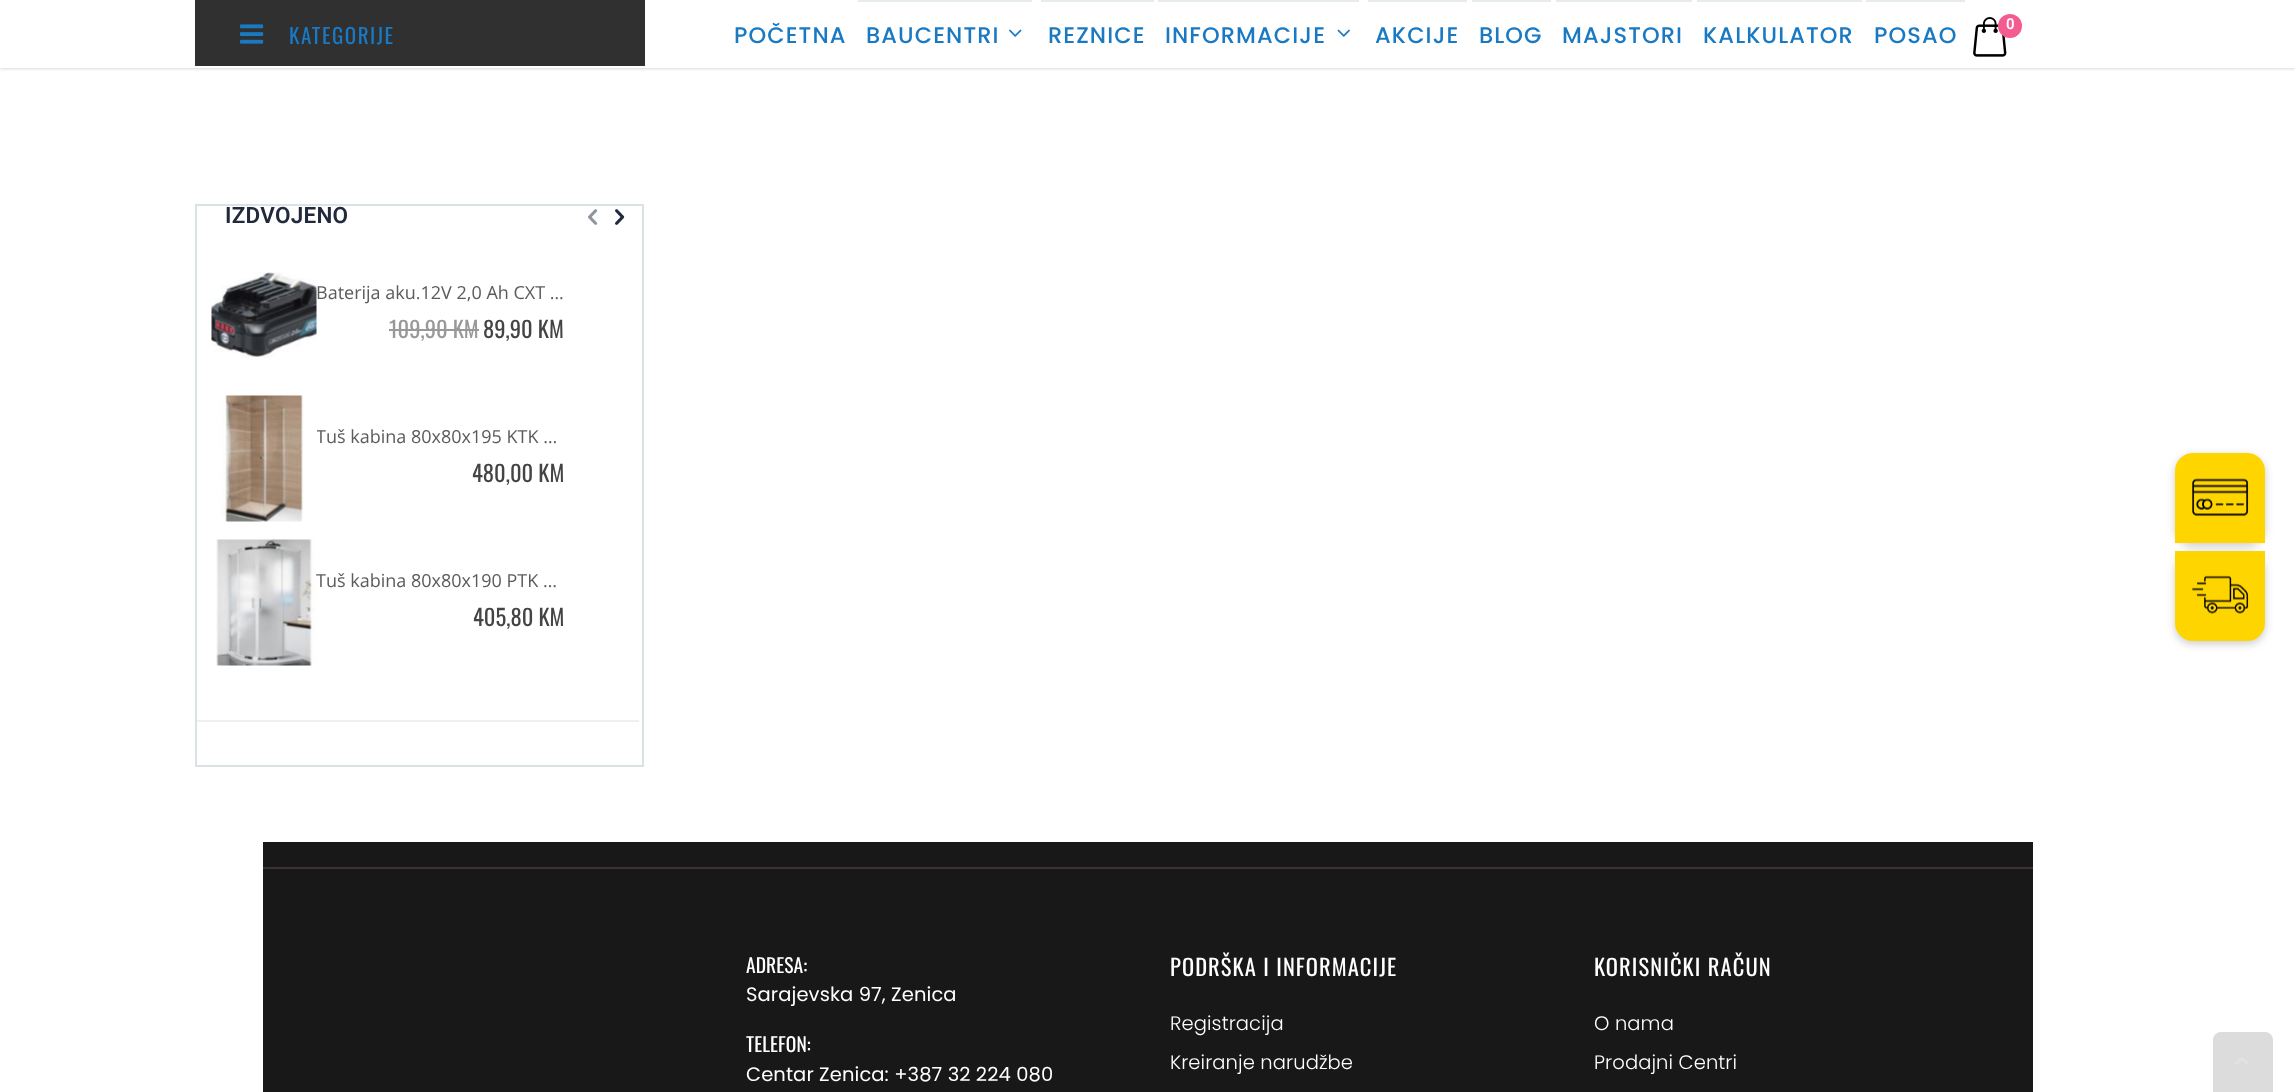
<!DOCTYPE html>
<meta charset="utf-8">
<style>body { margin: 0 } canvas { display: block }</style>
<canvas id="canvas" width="2295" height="1092"></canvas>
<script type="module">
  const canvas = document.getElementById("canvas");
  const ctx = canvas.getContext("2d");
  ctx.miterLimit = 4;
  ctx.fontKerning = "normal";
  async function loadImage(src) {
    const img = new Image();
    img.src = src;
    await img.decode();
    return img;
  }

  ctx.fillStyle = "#ffffff";
  ctx.fillRect(0, 0, 2295, 1092);
  ctx.fillStyle = "rgba(0, 0, 0, 0.15)";
  ctx.filter = "blur(1.5px)";
  ctx.beginPath();
  ctx.rect(0, 2, 2295, 67);
  ctx.fill();
  ctx.filter = "none";
  ctx.fillStyle = "#ffffff";
  ctx.fillRect(0, 0, 2295, 68);
  ctx.fillStyle = "#303030";
  ctx.fillRect(195, 0, 450, 66);
  ctx.drawImage(await loadImage("img1.png"), 240, 24, 24, 20);
  ctx.letterSpacing = "1.5px";
  ctx.font = "21px Oswald";
  ctx.fillStyle = "#1979c3";
  ctx.fillText("KATEGORIJE", 289, 44);
  ctx.letterSpacing = "1.1px";
  ctx.font = "500 22.5px Poppins";
  ctx.fillText("POČETNA", 734, 43);
  ctx.fillStyle = "#e6ebee";
  ctx.fillRect(858, 0, 174, 2);
  ctx.fillStyle = "#1979c3";
  ctx.fillText("BAUCENTRI", 866, 43);
  ctx.drawImage(await loadImage("img2.png"), 1009, 29, 13, 8);
  ctx.fillStyle = "#e6ebee";
  ctx.fillRect(1041, 0, 113, 2);
  ctx.fillStyle = "#1979c3";
  ctx.fillText("REZNICE", 1048, 43);
  ctx.fillStyle = "#e6ebee";
  ctx.fillRect(1158, 0, 201, 2);
  ctx.fillStyle = "#1979c3";
  ctx.fillText("INFORMACIJE", 1165, 43);
  ctx.drawImage(await loadImage("img3.png"), 1337, 29, 13, 8);
  ctx.fillStyle = "#e6ebee";
  ctx.fillRect(1368, 0, 99, 2);
  ctx.fillStyle = "#1979c3";
  ctx.fillText("AKCIJE", 1375, 43);
  ctx.fillStyle = "#e6ebee";
  ctx.fillRect(1472, 0, 79, 2);
  ctx.fillStyle = "#1979c3";
  ctx.fillText("BLOG", 1479, 43);
  ctx.fillStyle = "#e6ebee";
  ctx.fillRect(1556, 0, 136, 2);
  ctx.fillStyle = "#1979c3";
  ctx.fillText("MAJSTORI", 1562, 43);
  ctx.fillStyle = "#e6ebee";
  ctx.fillRect(1697, 0, 165, 2);
  ctx.fillStyle = "#1979c3";
  ctx.fillText("KALKULATOR", 1703, 43);
  ctx.fillStyle = "#e6ebee";
  ctx.fillRect(1866, 0, 99, 2);
  ctx.fillStyle = "#1979c3";
  ctx.fillText("POSAO", 1874, 43);
  ctx.drawImage(await loadImage("img4.png"), 1973, 17, 34, 40);
  ctx.fillStyle = "#f45b91";
  ctx.beginPath();
  ctx.arc(2010, 26, 12, 0, Math.PI * 2);
  ctx.fill();
  ctx.letterSpacing = "0px";
  ctx.font = "600 15px Roboto";
  ctx.fillStyle = "#ffffff";
  ctx.fillText("0", 2006, 29);
  ctx.fillStyle = "#efefef";
  ctx.fillRect(195, 720, 444, 2);
  ctx.strokeStyle = "#dae2e6";
  ctx.lineWidth = 2;
  ctx.strokeRect(196, 205, 447, 561);
  ctx.letterSpacing = "0.25px";
  ctx.font = "600 22.5px Roboto";
  ctx.fillStyle = "#21293c";
  ctx.fillText("IZDVOJENO", 225, 223);
  ctx.drawImage(await loadImage("img5.png"), 588, 209, 10, 16);
  ctx.drawImage(await loadImage("img6.png"), 615, 209, 10, 16);
  ctx.drawImage(await loadImage("img7.png"), 211, 272, 106, 86);
  ctx.letterSpacing = "0px";
  ctx.font = "18px Open Sans";
  ctx.fillStyle = "#5b5b5f";
  ctx.fillText("Baterija aku.12V 2,0 Ah CXT …", 316, 299);
  ctx.font = "22.5px Oswald";
  ctx.fillStyle = "#999999";
  ctx.fillText("109,90 KM", 389, 338);
  ctx.fillRect(389, 329, 90, 2);
  ctx.fillStyle = "#444444";
  ctx.fillText("89,90 KM", 483, 338);
  ctx.drawImage(await loadImage("img8.png"), 218, 395, 87, 127);
  ctx.save();
  ctx.beginPath();
  ctx.rect(317, 425, 247, 27);
  ctx.clip();
  ctx.font = "18px Open Sans";
  ctx.fillStyle = "#5b5b5f";
  ctx.fillText("Tuš kabina 80x80x195 KTK …", 316, 443);
  ctx.restore();
  ctx.fillText("480,00 KM", 472, 482);
  ctx.drawImage(await loadImage("img9.png"), 216, 539, 100, 127);
  ctx.font = "18px Open Sans";
  ctx.fillStyle = "#5b5b5f";
  ctx.fillText("Tuš kabina 80x80x190 PTK …", 316, 587);
  ctx.font = "22.5px Oswald";
  ctx.fillStyle = "#444444";
  ctx.fillText("405,80 KM", 473, 626);
  ctx.fillStyle = "rgba(0, 0, 0, 0.2)";
  ctx.filter = "blur(4.5px)";
  ctx.beginPath();
  ctx.roundRect(2175, 456, 90, 90, 18);
  ctx.fill();
  ctx.filter = "none";
  ctx.fillStyle = "#ffd500";
  ctx.beginPath();
  ctx.roundRect(2175, 453, 90, 90, [18, 18, 0, 0]);
  ctx.fill();
  ctx.drawImage(await loadImage("img10.png"), 2192, 478, 57, 39);
  ctx.fillStyle = "rgba(0, 0, 0, 0.2)";
  ctx.filter = "blur(4.5px)";
  ctx.beginPath();
  ctx.roundRect(2175, 554, 90, 90, 18);
  ctx.fill();
  ctx.filter = "none";
  ctx.fillStyle = "#ffd500";
  ctx.beginPath();
  ctx.roundRect(2175, 551, 90, 90, [0, 0, 18, 18]);
  ctx.fill();
  ctx.drawImage(await loadImage("img11.png"), 2192, 575, 57, 39);
  ctx.fillStyle = "#181818";
  ctx.fillRect(263, 842, 1770, 25);
  ctx.fillStyle = "#3d3232";
  ctx.fillRect(263, 867, 1770, 2);
  ctx.fillStyle = "#181818";
  ctx.fillRect(263, 869, 1770, 223);
  ctx.letterSpacing = "0.1px";
  ctx.font = "19.5px Oswald";
  ctx.fillStyle = "#ffffff";
  ctx.fillText("ADRESA:", 746, 973);
  ctx.font = "19.5px Poppins";
  ctx.fillText("Sarajevska 97, Zenica", 746, 1001);
  ctx.font = "19.5px Oswald";
  ctx.fillText("TELEFON:", 746, 1052);
  ctx.font = "19.5px Poppins";
  ctx.fillText("Centar Zenica: +387 32 224 080", 746, 1081);
  ctx.letterSpacing = "1.1px";
  ctx.font = "22.5px Oswald";
  ctx.fillText("PODRŠKA I INFORMACIJE", 1170, 976);
  ctx.letterSpacing = "0.1px";
  ctx.font = "300 19.5px Poppins";
  ctx.fillText("Registracija", 1170, 1030);
  ctx.fillText("Kreiranje narudžbe", 1170, 1069);
  ctx.letterSpacing = "1.1px";
  ctx.font = "22.5px Oswald";
  ctx.fillText("KORISNIČKI RAČUN", 1594, 976);
  ctx.letterSpacing = "0.1px";
  ctx.font = "300 19.5px Poppins";
  ctx.fillText("O nama", 1594, 1030);
  ctx.fillText("Prodajni Centri", 1594, 1069);
  ctx.fillStyle = "#dcdcdc";
  ctx.beginPath();
  ctx.roundRect(2213, 1032, 60, 60, [8, 8, 0, 0]);
  ctx.fill();
  ctx.drawImage(await loadImage("img12.png"), 2235, 1057, 14, 8);
</script>
